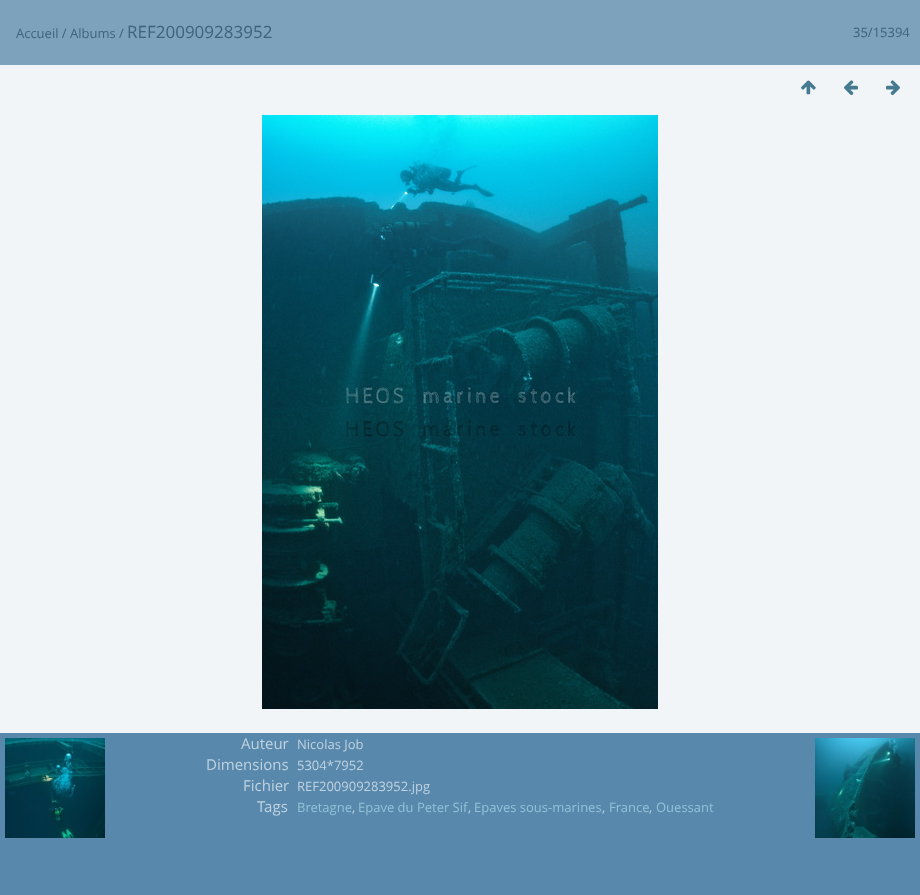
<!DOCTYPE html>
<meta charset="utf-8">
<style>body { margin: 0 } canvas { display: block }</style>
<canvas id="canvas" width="920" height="895"></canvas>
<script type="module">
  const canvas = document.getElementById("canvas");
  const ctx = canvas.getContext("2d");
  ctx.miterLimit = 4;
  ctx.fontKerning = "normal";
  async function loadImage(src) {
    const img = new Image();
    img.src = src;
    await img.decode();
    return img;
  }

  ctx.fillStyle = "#f1f5f8";
  ctx.fillRect(0, 0, 920, 895);
  ctx.fillStyle = "#7ca2bc";
  ctx.fillRect(0, 0, 920, 65);
  ctx.font = "13px Open Sans";
  ctx.fillStyle = "#3f6379";
  ctx.fillText("Accueil / Albums /", 16, 38);
  ctx.font = "17px Open Sans";
  ctx.fillText("REF200909283952", 127, 38);
  ctx.font = "13px Open Sans";
  ctx.fillText("35/15394", 853, 37);
  ctx.font = "17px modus";
  ctx.fillStyle = "#457a90";
  ctx.fillText("↑", 801, 93);
  ctx.fillText("←", 844, 93);
  ctx.fillText("→", 886, 93);
  ctx.drawImage(await loadImage("img1.png"), 262, 115, 396, 594);
  ctx.fillStyle = "#5889ad";
  ctx.fillRect(0, 733, 920, 162);
  ctx.drawImage(await loadImage("img2.png"), 5, 738, 100, 100);
  ctx.drawImage(await loadImage("img3.png"), 815, 738, 100, 100);
  ctx.font = "15px Open Sans";
  ctx.fillStyle = "#c0d2df";
  ctx.fillText("Auteur", 241, 749);
  ctx.font = "13px Open Sans";
  ctx.fillText("Nicolas Job", 297, 749);
  ctx.font = "15px Open Sans";
  ctx.fillText("Dimensions", 206, 770);
  ctx.font = "13px Open Sans";
  ctx.fillText("5304*7952", 297, 770);
  ctx.font = "15px Open Sans";
  ctx.fillText("Fichier", 243, 791);
  ctx.font = "13px Open Sans";
  ctx.fillText("REF200909283952.jpg", 297, 791);
  ctx.font = "15px Open Sans";
  ctx.fillText("Tags", 257, 812);
  ctx.font = "13px Open Sans";
  ctx.fillStyle = "#93c2d6";
  ctx.fillText("Bretagne", 297, 812);
  ctx.fillStyle = "#c0d2df";
  ctx.fillText(",", 352, 812);
  ctx.fillStyle = "#93c2d6";
  ctx.fillText("Epave du Peter Sif", 358, 812);
  ctx.fillStyle = "#c0d2df";
  ctx.fillText(",", 468, 812);
  ctx.fillStyle = "#93c2d6";
  ctx.fillText("Epaves sous-marines", 474, 812);
  ctx.fillStyle = "#c0d2df";
  ctx.fillText(",", 602, 812);
  ctx.fillStyle = "#93c2d6";
  ctx.fillText("France", 609, 812);
  ctx.fillStyle = "#c0d2df";
  ctx.fillText(",", 649, 812);
  ctx.fillStyle = "#93c2d6";
  ctx.fillText("Ouessant", 656, 812);
</script>
